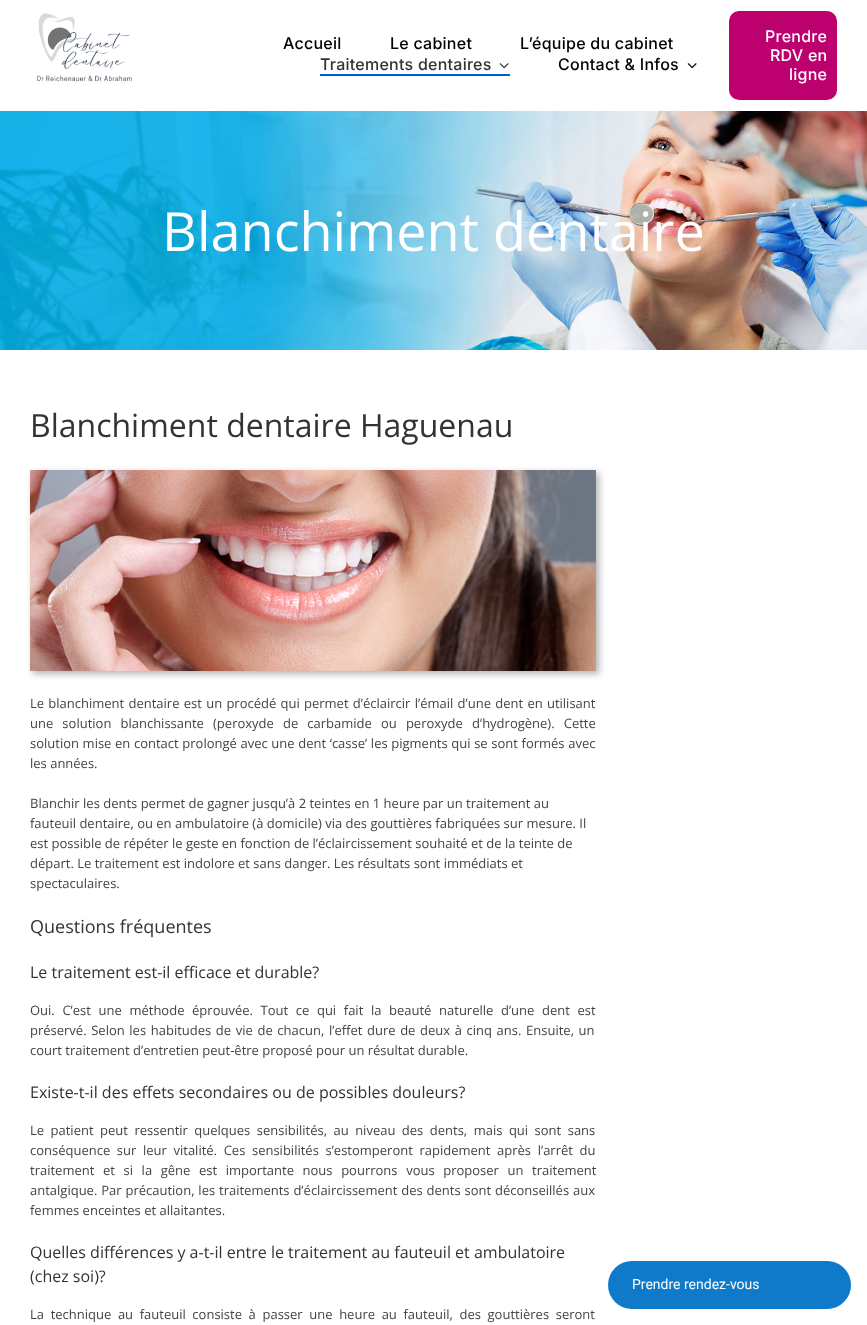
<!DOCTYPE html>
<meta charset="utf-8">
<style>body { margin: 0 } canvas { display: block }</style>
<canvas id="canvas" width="867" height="1325"></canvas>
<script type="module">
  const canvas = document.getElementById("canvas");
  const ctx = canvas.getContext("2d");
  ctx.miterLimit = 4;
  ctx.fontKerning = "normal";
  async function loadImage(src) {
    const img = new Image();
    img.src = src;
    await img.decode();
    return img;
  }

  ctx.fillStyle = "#ffffff";
  ctx.fillRect(0, 0, 867, 1325);
  ctx.drawImage(await loadImage("img1.png"), 37, 13, 95, 69);
  ctx.letterSpacing = "0.25px";
  ctx.font = "500 16px Inter";
  ctx.fillStyle = "#000000";
  ctx.fillText("Accueil", 283, 49);
  ctx.fillText("Le cabinet", 390, 49);
  ctx.fillText("L’équipe du cabinet", 520, 49);
  ctx.fillStyle = "#333333";
  ctx.fillText("Traitements dentaires", 320, 70);
  ctx.drawImage(await loadImage("img2.png"), 499, 63, 10, 6);
  ctx.fillStyle = "#005cd6";
  ctx.fillRect(320, 74, 190, 2);
  ctx.fillStyle = "#000000";
  ctx.fillText("Contact & Infos", 558, 70);
  ctx.drawImage(await loadImage("img3.png"), 687, 63, 10, 6);
  ctx.fillStyle = "#bc006e";
  ctx.beginPath();
  ctx.roundRect(729, 11, 108, 89, 10);
  ctx.fill();
  ctx.fillStyle = "#ffffff";
  ctx.fillText("Prendre", 765, 42);
  ctx.fillText("RDV en", 770, 61);
  ctx.fillText("ligne", 789, 80);
  ctx.drawImage(await loadImage("img4.png"), 0, 111, 867, 239);
  ctx.letterSpacing = "0px";
  ctx.font = "54px Open Sans";
  ctx.fillText("Blanchiment dentaire", 162, 251);
  ctx.font = "32px Open Sans";
  ctx.fillStyle = "#333333";
  ctx.fillText("Blanchiment dentaire Haguenau", 30, 437);
  ctx.fillStyle = "rgba(0, 0, 0, 0.3)";
  ctx.filter = "blur(3.5px)";
  ctx.beginPath();
  ctx.rect(33, 473, 566, 201);
  ctx.fill();
  ctx.filter = "none";
  ctx.drawImage(await loadImage("img5.png"), 30, 470, 566, 201);
  ctx.wordSpacing = "0.9px";
  ctx.font = "13px Open Sans";
  ctx.fillStyle = "#444444";
  ctx.fillText("Le blanchiment dentaire est un procédé qui permet d’éclaircir l’émail d’une dent en utilisant", 30, 708);
  ctx.wordSpacing = "5.75px";
  ctx.fillText("une solution blanchissante (peroxyde de carbamide ou peroxyde d’hydrogène). Cette", 30, 728);
  ctx.wordSpacing = "0.25px";
  ctx.fillText("solution mise en contact prolongé avec une dent ‘casse’ les pigments qui se sont formés avec", 30, 748);
  ctx.wordSpacing = "0px";
  ctx.fillText("les années.", 30, 768);
  ctx.fillText("Blanchir les dents permet de gagner jusqu’à 2 teintes en 1 heure par un traitement au", 30, 808);
  ctx.fillText("fauteuil dentaire, ou en ambulatoire (à domicile) via des gouttières fabriquées sur mesure. Il", 30, 828);
  ctx.fillText("est possible de répéter le geste en fonction de l’éclaircissement souhaité et de la teinte de", 30, 848);
  ctx.fillText("départ. Le traitement est indolore et sans danger. Les résultats sont immédiats et", 30, 868);
  ctx.fillText("spectaculaires.", 30, 888);
  ctx.font = "18px Open Sans";
  ctx.fillStyle = "#333333";
  ctx.fillText("Questions fréquentes", 30, 933);
  ctx.font = "16px Open Sans";
  ctx.fillText("Le traitement est-il efficace et durable?", 30, 978);
  ctx.wordSpacing = "4.25px";
  ctx.font = "13px Open Sans";
  ctx.fillStyle = "#444444";
  ctx.fillText("Oui. C’est une méthode éprouvée. Tout ce qui fait la beauté naturelle d’une dent est", 30, 1015);
  ctx.wordSpacing = "1.25px";
  ctx.fillText("préservé. Selon les habitudes de vie de chacun, l’effet dure de deux à cinq ans. Ensuite, un", 30, 1035);
  ctx.wordSpacing = "0px";
  ctx.fillText("court traitement d’entretien peut-être proposé pour un résultat durable.", 30, 1055);
  ctx.font = "16px Open Sans";
  ctx.fillStyle = "#333333";
  ctx.fillText("Existe-t-il des effets secondaires ou de possibles douleurs?", 30, 1098);
  ctx.wordSpacing = "3.1px";
  ctx.font = "13px Open Sans";
  ctx.fillStyle = "#444444";
  ctx.fillText("Le patient peut ressentir quelques sensibilités, au niveau des dents, mais qui sont sans", 30, 1135);
  ctx.wordSpacing = "3.25px";
  ctx.fillText("conséquence sur leur vitalité. Ces sensibilités s’estomperont rapidement après l’arrêt du", 30, 1155);
  ctx.wordSpacing = "5.25px";
  ctx.fillText("traitement et si la gêne est importante nous pourrons vous proposer un traitement", 30, 1175);
  ctx.wordSpacing = "0.5px";
  ctx.fillText("antalgique. Par précaution, les traitements d’éclaircissement des dents sont déconseillés aux", 30, 1195);
  ctx.wordSpacing = "0px";
  ctx.fillText("femmes enceintes et allaitantes.", 30, 1215);
  ctx.font = "16px Open Sans";
  ctx.fillStyle = "#333333";
  ctx.fillText("Quelles différences y a-t-il entre le traitement au fauteuil et ambulatoire", 30, 1258);
  ctx.fillText("(chez soi)?", 30, 1282);
  ctx.wordSpacing = "3.25px";
  ctx.font = "13px Open Sans";
  ctx.fillStyle = "#444444";
  ctx.fillText("La technique au fauteuil consiste à passer une heure au fauteuil, des gouttières seront", 30, 1319);
  ctx.fillStyle = "#107aca";
  ctx.beginPath();
  ctx.roundRect(608, 1261, 243, 48, 24);
  ctx.fill();
  ctx.wordSpacing = "0px";
  ctx.font = "14px Roboto";
  ctx.fillStyle = "#ffffff";
  ctx.fillText("Prendre rendez-vous", 632, 1289);
</script>
